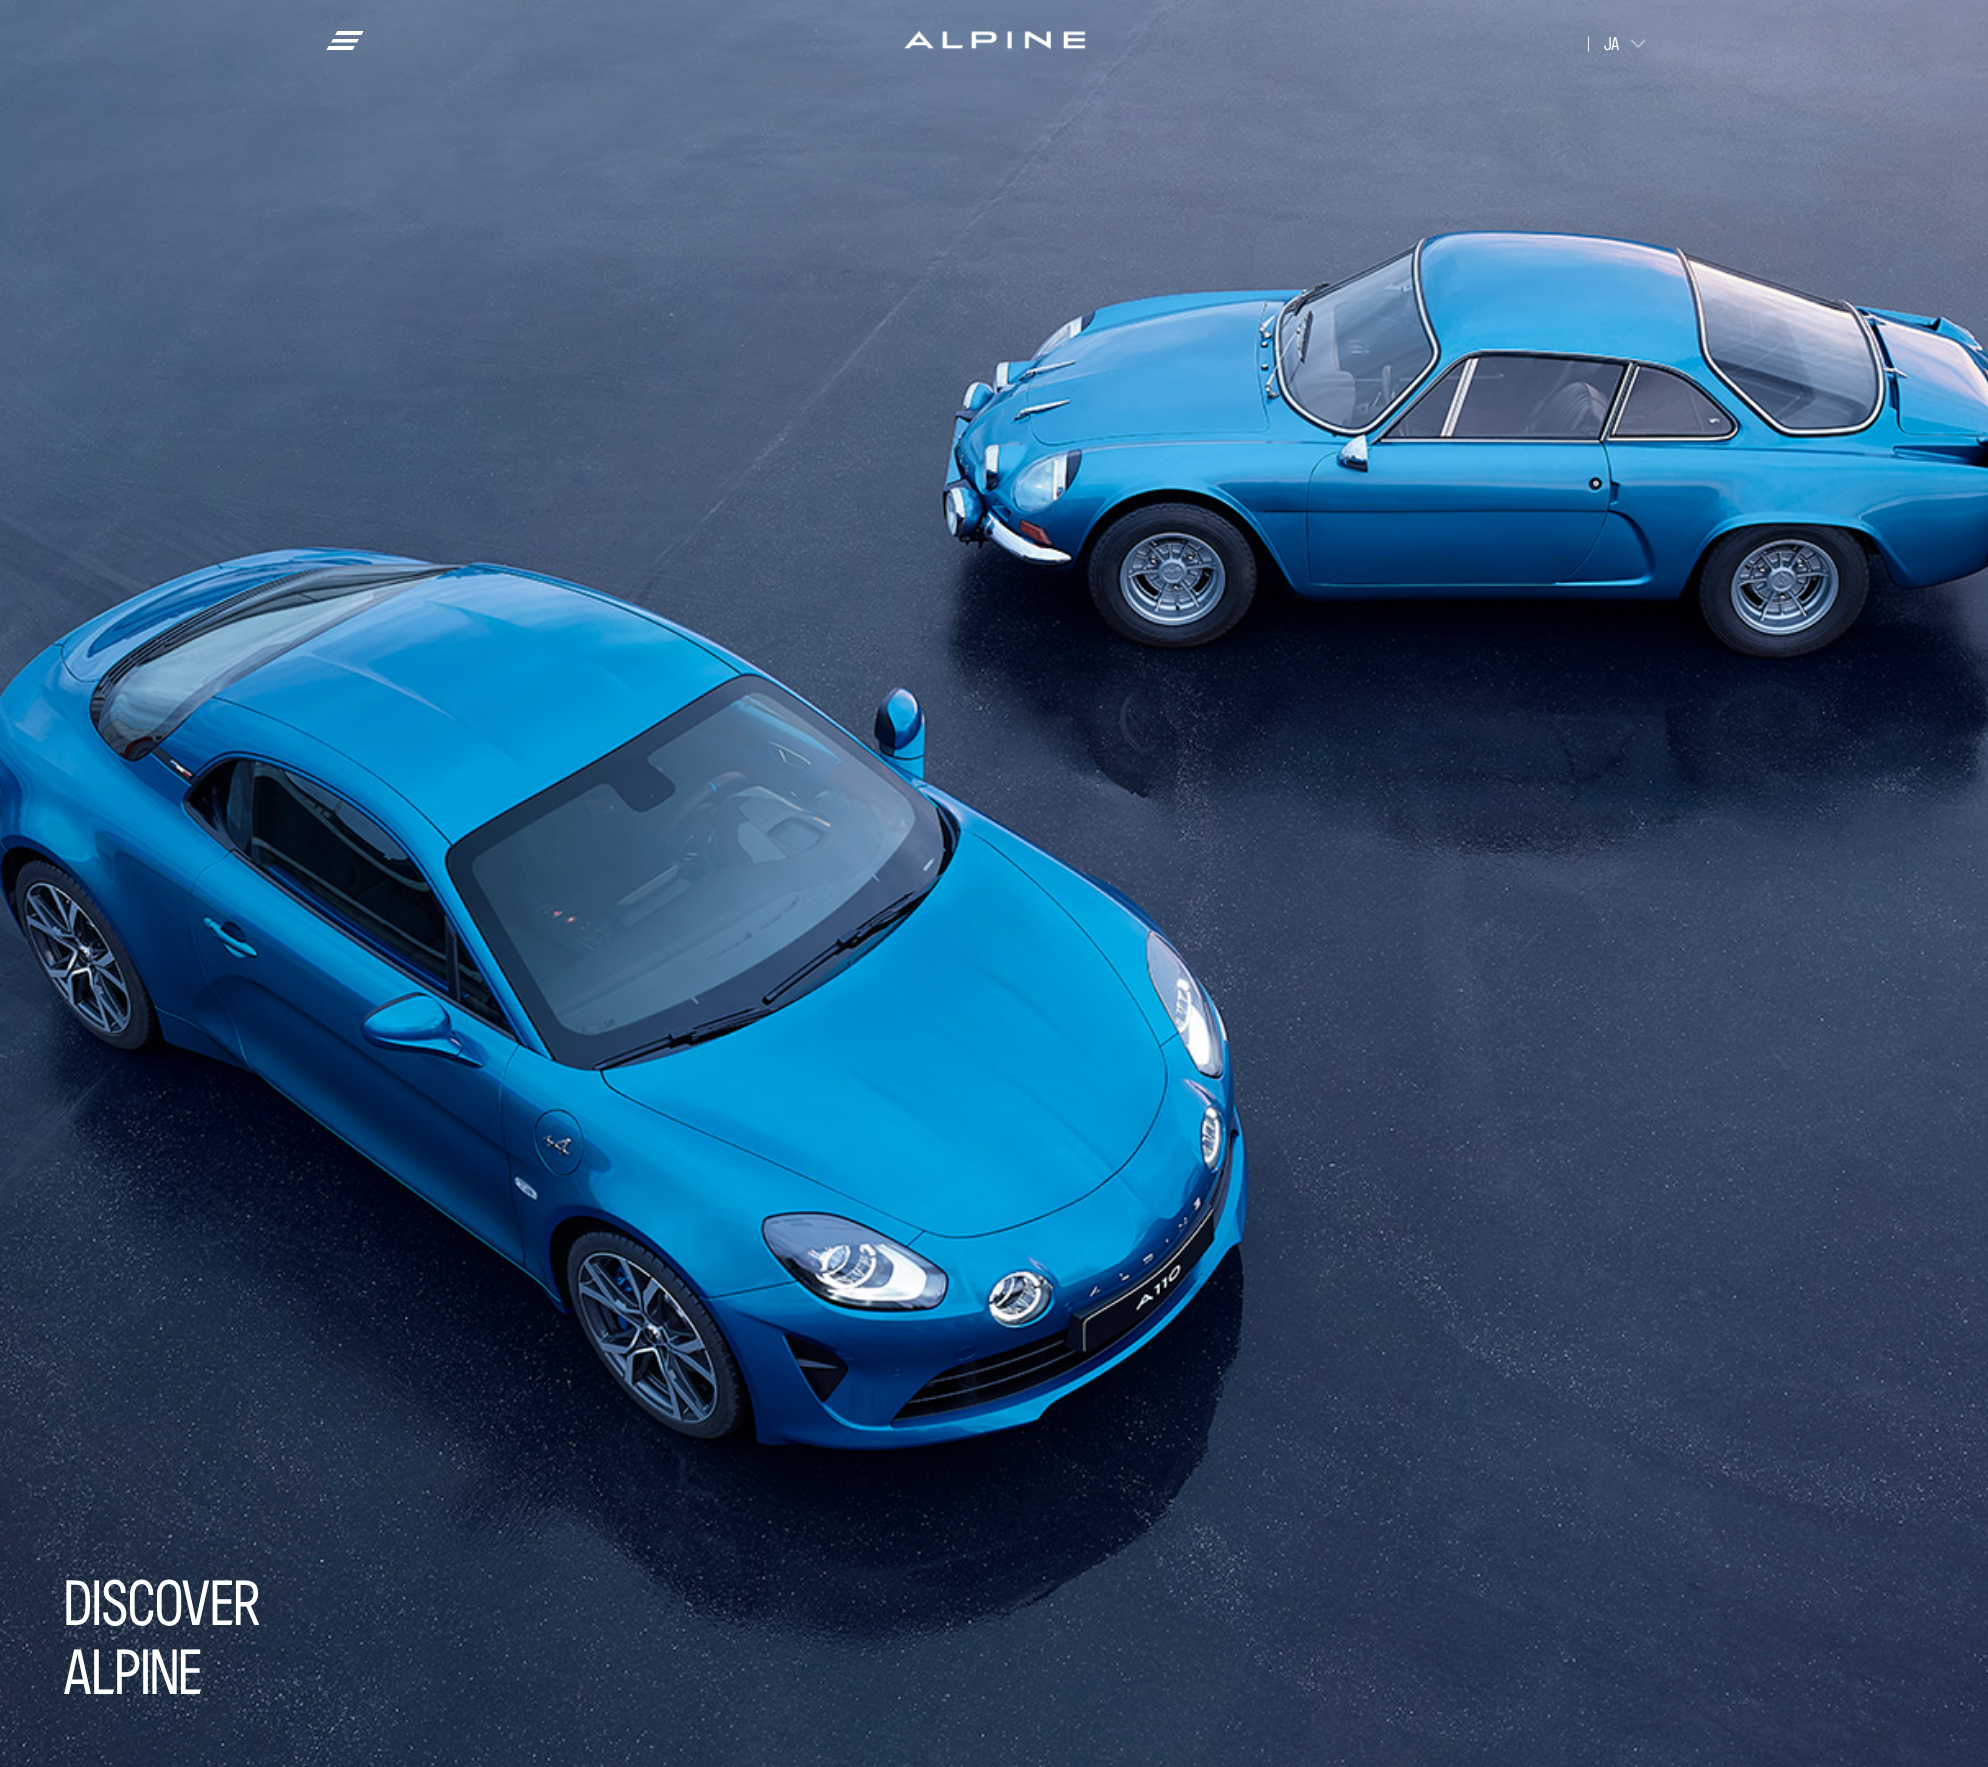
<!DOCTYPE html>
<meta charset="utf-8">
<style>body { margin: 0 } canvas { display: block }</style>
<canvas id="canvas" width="1988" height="1767"></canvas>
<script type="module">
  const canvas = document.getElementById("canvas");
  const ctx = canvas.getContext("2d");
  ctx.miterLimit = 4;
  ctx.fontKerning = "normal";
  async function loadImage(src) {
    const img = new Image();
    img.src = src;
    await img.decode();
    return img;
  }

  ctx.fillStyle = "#ffffff";
  ctx.fillRect(0, 0, 1988, 1767);
  ctx.drawImage(await loadImage("img3.png"), 0, 0, 1988, 1767);
  ctx.beginPath();
  ctx.moveTo(337.5, 31);
  ctx.lineTo(363.5, 31);
  ctx.lineTo(361.5, 35);
  ctx.lineTo(335, 35);
  ctx.closePath();
  ctx.moveTo(333, 39);
  ctx.lineTo(359, 39);
  ctx.lineTo(357, 42.5);
  ctx.lineTo(331, 42.5);
  ctx.closePath();
  ctx.moveTo(328.5, 46);
  ctx.lineTo(355, 46);
  ctx.lineTo(352.5, 50);
  ctx.lineTo(326.5, 50);
  ctx.closePath();
  ctx.fill();
  ctx.drawImage(await loadImage("img1.png"), 904, 31, 182, 19);
  ctx.font = "300 16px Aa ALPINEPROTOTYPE";
  ctx.fillText("|", 1587, 50);
  ctx.font = "300 18px Aa ALPINEPROTOTYPE";
  ctx.fillText("JA", 1604, 50);
  ctx.drawImage(await loadImage("img2.png"), 1630, 39, 15, 10);
  ctx.font = "300 62.5px Aa ALPINEPROTOTYPE";
  ctx.fillText("DISCOVER", 63, 1625);
  ctx.fillText("ALPINE", 63, 1694);
</script>
